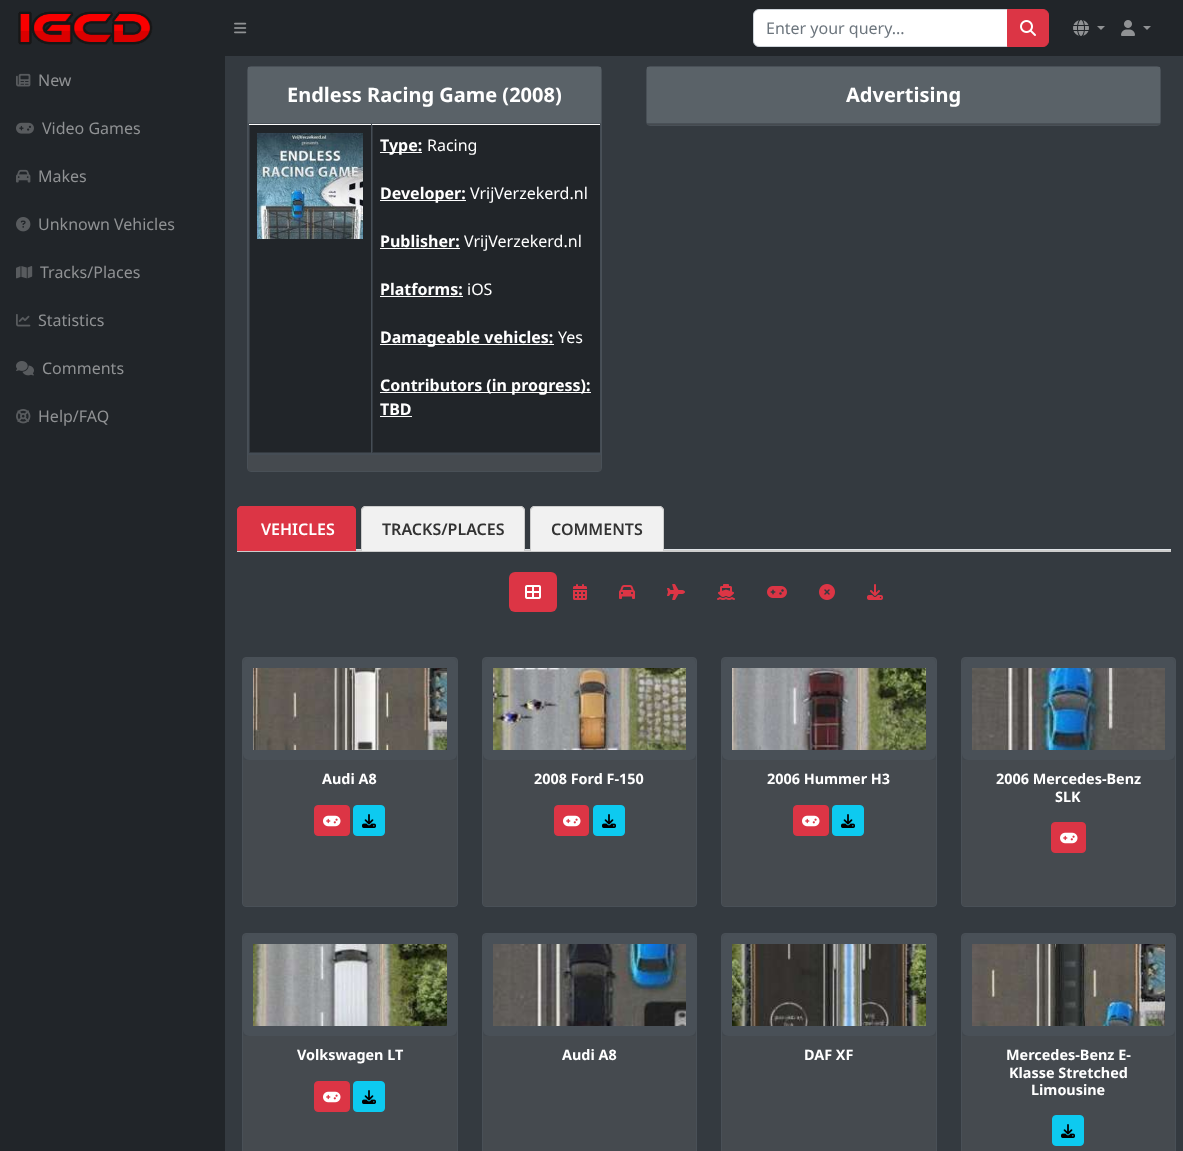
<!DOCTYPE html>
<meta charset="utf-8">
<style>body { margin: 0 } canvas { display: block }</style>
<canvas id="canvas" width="1183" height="1151"></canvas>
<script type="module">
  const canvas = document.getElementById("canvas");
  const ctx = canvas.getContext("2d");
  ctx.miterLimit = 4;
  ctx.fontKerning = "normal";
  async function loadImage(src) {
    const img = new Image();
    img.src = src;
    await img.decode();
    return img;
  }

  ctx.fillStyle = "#343a40";
  ctx.fillRect(0, 0, 1183, 1151);
  ctx.fillStyle = "#212529";
  ctx.fillRect(0, 0, 1183, 56);
  ctx.drawImage(await loadImage("img1.png"), 18, 11, 135, 34);
  ctx.drawImage(await loadImage("img2.png"), 234, 22, 13, 12);
  ctx.fillStyle = "#ffffff";
  ctx.beginPath();
  ctx.roundRect(753.5, 9.5, 254, 37, [5.5, 0, 0, 5.5]);
  ctx.fill();
  ctx.strokeStyle = "#ced4da";
  ctx.stroke();
  ctx.font = "16px Noto Sans";
  ctx.fillStyle = "#6c757d";
  ctx.fillText("Enter your query...", 766, 34);
  ctx.fillStyle = "#dc3545";
  ctx.beginPath();
  ctx.roundRect(1007.5, 9.5, 41, 37, [0, 5.5, 5.5, 0]);
  ctx.fill();
  ctx.strokeStyle = "#dc3545";
  ctx.stroke();
  ctx.drawImage(await loadImage("img3.png"), 1020, 20, 16, 16);
  ctx.drawImage(await loadImage("img4.png"), 1073, 20, 16, 16);
  ctx.fillStyle = "#909294";
  ctx.beginPath();
  ctx.moveTo(1097, 26);
  ctx.lineTo(1105, 26);
  ctx.lineTo(1101, 30);
  ctx.closePath();
  ctx.fill();
  ctx.drawImage(await loadImage("img5.png"), 1121, 20, 14, 16);
  ctx.beginPath();
  ctx.moveTo(1143, 26);
  ctx.lineTo(1151, 26);
  ctx.lineTo(1147, 30);
  ctx.closePath();
  ctx.fill();
  ctx.fillStyle = "#212529";
  ctx.fillRect(0, 56, 225, 1095);
  ctx.drawImage(await loadImage("img6.png"), 16, 73, 15, 14);
  ctx.fillStyle = "#909294";
  ctx.fillText("New", 38, 86);
  ctx.drawImage(await loadImage("img7.png"), 16, 122, 18, 12);
  ctx.fillText("Video Games", 42, 134);
  ctx.drawImage(await loadImage("img8.png"), 16, 169, 15, 14);
  ctx.fillText("Makes", 38, 182);
  ctx.drawImage(await loadImage("img9.png"), 16, 217, 15, 15);
  ctx.fillText("Unknown Vehicles", 38, 230);
  ctx.drawImage(await loadImage("img10.png"), 16, 266, 17, 13);
  ctx.fillText("Tracks/Places", 40, 278);
  ctx.drawImage(await loadImage("img11.png"), 16, 314, 15, 13);
  ctx.fillText("Statistics", 38, 326);
  ctx.drawImage(await loadImage("img12.png"), 16, 361, 18, 15);
  ctx.fillText("Comments", 42, 374);
  ctx.drawImage(await loadImage("img13.png"), 16, 409, 15, 15);
  ctx.fillText("Help/FAQ", 38, 422);
  ctx.beginPath();
  ctx.roundRect(247.5, 66.5, 354, 405, 3.5);
  ctx.strokeStyle = "#495057";
  ctx.stroke();
  ctx.fillStyle = "#5a6268";
  ctx.fillRect(248, 67, 353, 56);
  ctx.fillStyle = "#495057";
  ctx.fillRect(248, 123, 353, 1);
  ctx.font = "bold 20px Noto Sans";
  ctx.fillStyle = "#ffffff";
  ctx.fillText("Endless Racing Game (2008)", 287, 102);
  ctx.fillStyle = "#454a4f";
  ctx.fillRect(248, 455, 353, 16);
  ctx.fillStyle = "#ffffff";
  ctx.fillRect(248, 124, 353, 1);
  ctx.fillStyle = "#212529";
  ctx.fillRect(250, 125, 121, 327);
  ctx.fillStyle = "#454d55";
  ctx.fillRect(248, 124, 1, 331);
  ctx.drawImage(await loadImage("img14.png"), 257, 133, 106, 106);
  ctx.fillStyle = "#212529";
  ctx.fillRect(373, 125, 227, 327);
  ctx.fillStyle = "#454d55";
  ctx.fillRect(600, 124, 1, 331);
  ctx.fillRect(371, 124, 1, 331);
  ctx.fillRect(248, 453, 353, 2);
  ctx.fillStyle = "#ffffff";
  ctx.fillRect(380, 152, 42, 1);
  ctx.font = "bold 16px Noto Sans";
  ctx.fillText("Type:", 380, 151);
  ctx.font = "16px Noto Sans";
  ctx.fillText("Racing", 427, 151);
  ctx.fillRect(380, 200, 86, 1);
  ctx.font = "bold 16px Noto Sans";
  ctx.fillText("Developer:", 380, 199);
  ctx.font = "16px Noto Sans";
  ctx.fillText("VrijVerzekerd.nl", 470, 199);
  ctx.font = "bold 16px Noto Sans";
  ctx.fillText("Publisher:", 380, 247);
  ctx.fillRect(380, 248, 80, 1);
  ctx.font = "16px Noto Sans";
  ctx.fillText("VrijVerzekerd.nl", 464, 247);
  ctx.font = "bold 16px Noto Sans";
  ctx.fillText("Platforms:", 380, 295);
  ctx.fillRect(380, 296, 83, 1);
  ctx.font = "16px Noto Sans";
  ctx.fillText("iOS", 467, 295);
  ctx.fillRect(380, 344, 174, 1);
  ctx.font = "bold 16px Noto Sans";
  ctx.fillText("Damageable vehicles:", 380, 343);
  ctx.font = "16px Noto Sans";
  ctx.fillText("Yes", 558, 343);
  ctx.fillRect(380, 392, 211, 1);
  ctx.font = "bold 16px Noto Sans";
  ctx.fillText("Contributors (in progress):", 380, 391);
  ctx.fillText("TBD", 380, 415);
  ctx.fillRect(380, 416, 32, 1);
  ctx.beginPath();
  ctx.roundRect(646.5, 66.5, 514, 59, 3.5);
  ctx.stroke();
  ctx.fillStyle = "#5a6268";
  ctx.fillRect(647, 67, 513, 56);
  ctx.fillStyle = "#495057";
  ctx.fillRect(647, 123, 513, 1);
  ctx.font = "bold 20px Noto Sans";
  ctx.fillStyle = "#ffffff";
  ctx.fillText("Advertising", 846, 102);
  ctx.fillStyle = "#454a4f";
  ctx.fillRect(647, 124, 513, 1);
  ctx.fillStyle = "#cccccc";
  ctx.fillRect(237, 550, 934, 2);
  ctx.fillStyle = "#dee2e6";
  ctx.fillRect(356, 549, 815, 1);
  ctx.fillStyle = "#dc3545";
  ctx.beginPath();
  ctx.roundRect(237, 506, 119, 45, [5, 5, 0, 0]);
  ctx.fill();
  ctx.beginPath();
  ctx.moveTo(242, 506);
  ctx.lineTo(351, 506);
  ctx.bezierCurveTo(354, 506, 356, 508, 356, 511);
  ctx.lineTo(356, 551);
  ctx.lineTo(237, 551);
  ctx.lineTo(237, 511);
  ctx.bezierCurveTo(237, 508, 239, 506, 242, 506);
  ctx.closePath();
  ctx.moveTo(242, 507);
  ctx.lineTo(351, 507);
  ctx.bezierCurveTo(353, 507, 355, 509, 355, 511);
  ctx.lineTo(355, 551);
  ctx.lineTo(241, 551);
  ctx.lineTo(241, 511);
  ctx.bezierCurveTo(241, 509, 241, 507, 242, 507);
  ctx.closePath();
  ctx.fill("evenodd");
  ctx.font = "600 16px Noto Sans";
  ctx.fillStyle = "#ffffff";
  ctx.fillText("VEHICLES", 261, 535);
  ctx.fillStyle = "#f1f1f1";
  ctx.beginPath();
  ctx.roundRect(361, 506, 164, 45, [5, 5, 0, 0]);
  ctx.fill();
  ctx.fillStyle = "#cccccc";
  ctx.beginPath();
  ctx.moveTo(366, 506);
  ctx.lineTo(520, 506);
  ctx.bezierCurveTo(523, 506, 525, 508, 525, 511);
  ctx.lineTo(525, 551);
  ctx.lineTo(361, 551);
  ctx.lineTo(361, 511);
  ctx.bezierCurveTo(361, 508, 363, 506, 366, 506);
  ctx.closePath();
  ctx.moveTo(366, 507);
  ctx.lineTo(520, 507);
  ctx.bezierCurveTo(522, 507, 524, 509, 524, 511);
  ctx.lineTo(524, 551);
  ctx.lineTo(362, 551);
  ctx.lineTo(362, 511);
  ctx.bezierCurveTo(362, 509, 364, 507, 366, 507);
  ctx.closePath();
  ctx.fill("evenodd");
  ctx.fillStyle = "#333333";
  ctx.fillText("TRACKS/PLACES", 382, 535);
  ctx.fillStyle = "#f1f1f1";
  ctx.beginPath();
  ctx.roundRect(530, 506, 134, 45, [5, 5, 0, 0]);
  ctx.fill();
  ctx.fillStyle = "#cccccc";
  ctx.beginPath();
  ctx.moveTo(535, 506);
  ctx.lineTo(659, 506);
  ctx.bezierCurveTo(662, 506, 664, 508, 664, 511);
  ctx.lineTo(664, 551);
  ctx.lineTo(530, 551);
  ctx.lineTo(530, 511);
  ctx.bezierCurveTo(530, 508, 532, 506, 535, 506);
  ctx.closePath();
  ctx.moveTo(535, 507);
  ctx.lineTo(659, 507);
  ctx.bezierCurveTo(661, 507, 663, 509, 663, 511);
  ctx.lineTo(663, 551);
  ctx.lineTo(531, 551);
  ctx.lineTo(531, 511);
  ctx.bezierCurveTo(531, 509, 533, 507, 535, 507);
  ctx.closePath();
  ctx.fill("evenodd");
  ctx.fillStyle = "#333333";
  ctx.fillText("COMMENTS", 551, 535);
  ctx.fillStyle = "#dc3545";
  ctx.beginPath();
  ctx.roundRect(509, 572, 48, 40, 6);
  ctx.fill();
  ctx.drawImage(await loadImage("img15.png"), 525, 585, 16, 14);
  ctx.drawImage(await loadImage("img16.png"), 573, 584, 14, 16);
  ctx.drawImage(await loadImage("img17.png"), 619, 585, 16, 14);
  ctx.drawImage(await loadImage("img18.png"), 667, 584, 18, 16);
  ctx.drawImage(await loadImage("img19.png"), 717, 584, 18, 16);
  ctx.drawImage(await loadImage("img20.png"), 767, 586, 20, 12);
  ctx.drawImage(await loadImage("img21.png"), 819, 584, 16, 16);
  ctx.drawImage(await loadImage("img22.png"), 867, 584, 16, 16);
  ctx.fillStyle = "#495057";
  ctx.beginPath();
  ctx.roundRect(242.5, 657.5, 215, 249, 3.5);
  ctx.fill();
  ctx.stroke();
  ctx.save();
  ctx.beginPath();
  ctx.roundRect(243, 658, 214, 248, 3);
  ctx.clip();
  ctx.fillStyle = "rgba(0, 0, 0, 0.2)";
  ctx.filter = "blur(4px)";
  ctx.beginPath();
  ctx.roundRect(243, 662, 214, 102, 6);
  ctx.fill();
  ctx.filter = "none";
  ctx.restore();
  ctx.beginPath();
  ctx.roundRect(248, 663, 204, 92, 1);
  ctx.lineWidth = 10;
  ctx.stroke();
  ctx.drawImage(await loadImage("img23.png"), 253, 668, 194, 82);
  ctx.fillStyle = "#454a4f";
  ctx.beginPath();
  ctx.roundRect(243, 760, 214, 146, [0, 0, 3, 3]);
  ctx.fill();
  ctx.font = "bold 14.4px Noto Sans";
  ctx.fillStyle = "#ffffff";
  ctx.fillText("Audi A8", 322, 784);
  ctx.fillStyle = "#dc3545";
  ctx.beginPath();
  ctx.roundRect(314.5, 805.5, 35, 30, 3.5);
  ctx.fill();
  ctx.strokeStyle = "#dc3545";
  ctx.lineWidth = 1;
  ctx.stroke();
  ctx.drawImage(await loadImage("img24.png"), 323, 815, 18, 12);
  ctx.fillStyle = "#0dcaf0";
  ctx.beginPath();
  ctx.roundRect(353.5, 805.5, 31, 30, 3.5);
  ctx.fill();
  ctx.strokeStyle = "#0dcaf0";
  ctx.stroke();
  ctx.drawImage(await loadImage("img25.png"), 362, 814, 14, 14);
  ctx.fillStyle = "#495057";
  ctx.beginPath();
  ctx.roundRect(482.5, 657.5, 214, 249, 3.5);
  ctx.fill();
  ctx.strokeStyle = "#495057";
  ctx.stroke();
  ctx.save();
  ctx.beginPath();
  ctx.roundRect(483, 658, 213, 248, 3);
  ctx.clip();
  ctx.fillStyle = "rgba(0, 0, 0, 0.2)";
  ctx.filter = "blur(4px)";
  ctx.beginPath();
  ctx.roundRect(483, 662, 213, 102, 6);
  ctx.fill();
  ctx.filter = "none";
  ctx.restore();
  ctx.beginPath();
  ctx.roundRect(488, 663, 203, 92, 1);
  ctx.lineWidth = 10;
  ctx.stroke();
  ctx.drawImage(await loadImage("img26.png"), 493, 668, 193, 82);
  ctx.fillStyle = "#454a4f";
  ctx.beginPath();
  ctx.roundRect(483, 760, 213, 146, [0, 0, 3, 3]);
  ctx.fill();
  ctx.fillStyle = "#ffffff";
  ctx.fillText("2008 Ford F-150", 534, 784);
  ctx.fillStyle = "#dc3545";
  ctx.beginPath();
  ctx.roundRect(554.5, 805.5, 34, 30, 3.5);
  ctx.fill();
  ctx.strokeStyle = "#dc3545";
  ctx.lineWidth = 1;
  ctx.stroke();
  ctx.drawImage(await loadImage("img24.png"), 563, 815, 18, 12);
  ctx.fillStyle = "#0dcaf0";
  ctx.beginPath();
  ctx.roundRect(593.5, 805.5, 31, 30, 3.5);
  ctx.fill();
  ctx.strokeStyle = "#0dcaf0";
  ctx.stroke();
  ctx.drawImage(await loadImage("img25.png"), 602, 814, 14, 14);
  ctx.fillStyle = "#495057";
  ctx.beginPath();
  ctx.roundRect(721.5, 657.5, 215, 249, 3.5);
  ctx.fill();
  ctx.strokeStyle = "#495057";
  ctx.stroke();
  ctx.save();
  ctx.beginPath();
  ctx.roundRect(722, 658, 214, 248, 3);
  ctx.clip();
  ctx.fillStyle = "rgba(0, 0, 0, 0.2)";
  ctx.filter = "blur(4px)";
  ctx.beginPath();
  ctx.roundRect(722, 662, 214, 102, 6);
  ctx.fill();
  ctx.filter = "none";
  ctx.restore();
  ctx.beginPath();
  ctx.roundRect(727, 663, 204, 92, 1);
  ctx.lineWidth = 10;
  ctx.stroke();
  ctx.drawImage(await loadImage("img27.png"), 732, 668, 194, 82);
  ctx.fillStyle = "#454a4f";
  ctx.beginPath();
  ctx.roundRect(722, 760, 214, 146, [0, 0, 3, 3]);
  ctx.fill();
  ctx.fillStyle = "#ffffff";
  ctx.fillText("2006 Hummer H3", 767, 784);
  ctx.fillStyle = "#dc3545";
  ctx.beginPath();
  ctx.roundRect(793.5, 805.5, 35, 30, 3.5);
  ctx.fill();
  ctx.strokeStyle = "#dc3545";
  ctx.lineWidth = 1;
  ctx.stroke();
  ctx.drawImage(await loadImage("img24.png"), 802, 815, 18, 12);
  ctx.fillStyle = "#0dcaf0";
  ctx.beginPath();
  ctx.roundRect(832.5, 805.5, 31, 30, 3.5);
  ctx.fill();
  ctx.strokeStyle = "#0dcaf0";
  ctx.stroke();
  ctx.drawImage(await loadImage("img25.png"), 841, 814, 14, 14);
  ctx.fillStyle = "#495057";
  ctx.beginPath();
  ctx.roundRect(961.5, 657.5, 214, 249, 3.5);
  ctx.fill();
  ctx.strokeStyle = "#495057";
  ctx.stroke();
  ctx.save();
  ctx.beginPath();
  ctx.roundRect(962, 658, 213, 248, 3);
  ctx.clip();
  ctx.fillStyle = "rgba(0, 0, 0, 0.2)";
  ctx.filter = "blur(4px)";
  ctx.beginPath();
  ctx.roundRect(962, 662, 213, 102, 6);
  ctx.fill();
  ctx.filter = "none";
  ctx.restore();
  ctx.beginPath();
  ctx.roundRect(967, 663, 203, 92, 1);
  ctx.lineWidth = 10;
  ctx.stroke();
  ctx.drawImage(await loadImage("img28.png"), 972, 668, 193, 82);
  ctx.fillStyle = "#454a4f";
  ctx.beginPath();
  ctx.roundRect(962, 760, 213, 146, [0, 0, 3, 3]);
  ctx.fill();
  ctx.fillStyle = "#ffffff";
  ctx.fillText("2006 Mercedes-Benz", 996, 784);
  ctx.fillText("SLK", 1055, 802);
  ctx.fillStyle = "#dc3545";
  ctx.beginPath();
  ctx.roundRect(1051.5, 822.5, 34, 30, 3.5);
  ctx.fill();
  ctx.strokeStyle = "#dc3545";
  ctx.lineWidth = 1;
  ctx.stroke();
  ctx.drawImage(await loadImage("img24.png"), 1060, 832, 18, 12);
  ctx.fillStyle = "#495057";
  ctx.beginPath();
  ctx.roundRect(242.5, 933.5, 215, 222, 3.5);
  ctx.fill();
  ctx.strokeStyle = "#495057";
  ctx.stroke();
  ctx.save();
  ctx.beginPath();
  ctx.roundRect(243, 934, 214, 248, 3);
  ctx.clip();
  ctx.fillStyle = "rgba(0, 0, 0, 0.2)";
  ctx.filter = "blur(4px)";
  ctx.beginPath();
  ctx.roundRect(243, 938, 214, 102, 6);
  ctx.fill();
  ctx.filter = "none";
  ctx.restore();
  ctx.beginPath();
  ctx.roundRect(248, 939, 204, 92, 1);
  ctx.lineWidth = 10;
  ctx.stroke();
  ctx.drawImage(await loadImage("img29.png"), 253, 944, 194, 82);
  ctx.fillStyle = "#454a4f";
  ctx.fillRect(243, 1036, 214, 115);
  ctx.fillStyle = "#ffffff";
  ctx.fillText("Volkswagen LT", 297, 1060);
  ctx.fillStyle = "#dc3545";
  ctx.beginPath();
  ctx.roundRect(314.5, 1081.5, 35, 30, 3.5);
  ctx.fill();
  ctx.strokeStyle = "#dc3545";
  ctx.lineWidth = 1;
  ctx.stroke();
  ctx.drawImage(await loadImage("img24.png"), 323, 1091, 18, 12);
  ctx.fillStyle = "#0dcaf0";
  ctx.beginPath();
  ctx.roundRect(353.5, 1081.5, 31, 30, 3.5);
  ctx.fill();
  ctx.strokeStyle = "#0dcaf0";
  ctx.stroke();
  ctx.drawImage(await loadImage("img25.png"), 362, 1090, 14, 14);
  ctx.fillStyle = "#495057";
  ctx.beginPath();
  ctx.roundRect(482.5, 933.5, 214, 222, 3.5);
  ctx.fill();
  ctx.strokeStyle = "#495057";
  ctx.stroke();
  ctx.save();
  ctx.beginPath();
  ctx.roundRect(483, 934, 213, 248, 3);
  ctx.clip();
  ctx.fillStyle = "rgba(0, 0, 0, 0.2)";
  ctx.filter = "blur(4px)";
  ctx.beginPath();
  ctx.roundRect(483, 938, 213, 102, 6);
  ctx.fill();
  ctx.filter = "none";
  ctx.restore();
  ctx.beginPath();
  ctx.roundRect(488, 939, 203, 92, 1);
  ctx.lineWidth = 10;
  ctx.stroke();
  ctx.drawImage(await loadImage("img30.png"), 493, 944, 193, 82);
  ctx.fillStyle = "#454a4f";
  ctx.fillRect(483, 1036, 213, 115);
  ctx.fillStyle = "#ffffff";
  ctx.fillText("Audi A8", 562, 1060);
  ctx.fillStyle = "#495057";
  ctx.beginPath();
  ctx.roundRect(721.5, 933.5, 215, 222, 3.5);
  ctx.fill();
  ctx.lineWidth = 1;
  ctx.stroke();
  ctx.save();
  ctx.beginPath();
  ctx.roundRect(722, 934, 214, 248, 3);
  ctx.clip();
  ctx.fillStyle = "rgba(0, 0, 0, 0.2)";
  ctx.filter = "blur(4px)";
  ctx.beginPath();
  ctx.roundRect(722, 938, 214, 102, 6);
  ctx.fill();
  ctx.filter = "none";
  ctx.restore();
  ctx.beginPath();
  ctx.roundRect(727, 939, 204, 92, 1);
  ctx.lineWidth = 10;
  ctx.stroke();
  ctx.drawImage(await loadImage("img31.png"), 732, 944, 194, 82);
  ctx.fillStyle = "#454a4f";
  ctx.fillRect(722, 1036, 214, 115);
  ctx.fillStyle = "#ffffff";
  ctx.fillText("DAF XF", 804, 1060);
  ctx.fillStyle = "#495057";
  ctx.beginPath();
  ctx.roundRect(961.5, 933.5, 214, 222, 3.5);
  ctx.fill();
  ctx.lineWidth = 1;
  ctx.stroke();
  ctx.save();
  ctx.beginPath();
  ctx.roundRect(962, 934, 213, 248, 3);
  ctx.clip();
  ctx.fillStyle = "rgba(0, 0, 0, 0.2)";
  ctx.filter = "blur(4px)";
  ctx.beginPath();
  ctx.roundRect(962, 938, 213, 102, 6);
  ctx.fill();
  ctx.filter = "none";
  ctx.restore();
  ctx.beginPath();
  ctx.roundRect(967, 939, 203, 92, 1);
  ctx.lineWidth = 10;
  ctx.stroke();
  ctx.drawImage(await loadImage("img32.png"), 972, 944, 193, 82);
  ctx.fillStyle = "#454a4f";
  ctx.fillRect(962, 1036, 213, 115);
  ctx.fillStyle = "#ffffff";
  ctx.fillText("Mercedes-Benz E-", 1006, 1060);
  ctx.fillText("Klasse Stretched", 1009, 1078);
  ctx.fillText("Limousine", 1031, 1095);
  ctx.fillStyle = "#0dcaf0";
  ctx.beginPath();
  ctx.roundRect(1052.5, 1115.5, 31, 30, 3.5);
  ctx.fill();
  ctx.strokeStyle = "#0dcaf0";
  ctx.lineWidth = 1;
  ctx.stroke();
  ctx.drawImage(await loadImage("img25.png"), 1061, 1124, 14, 14);
</script>
